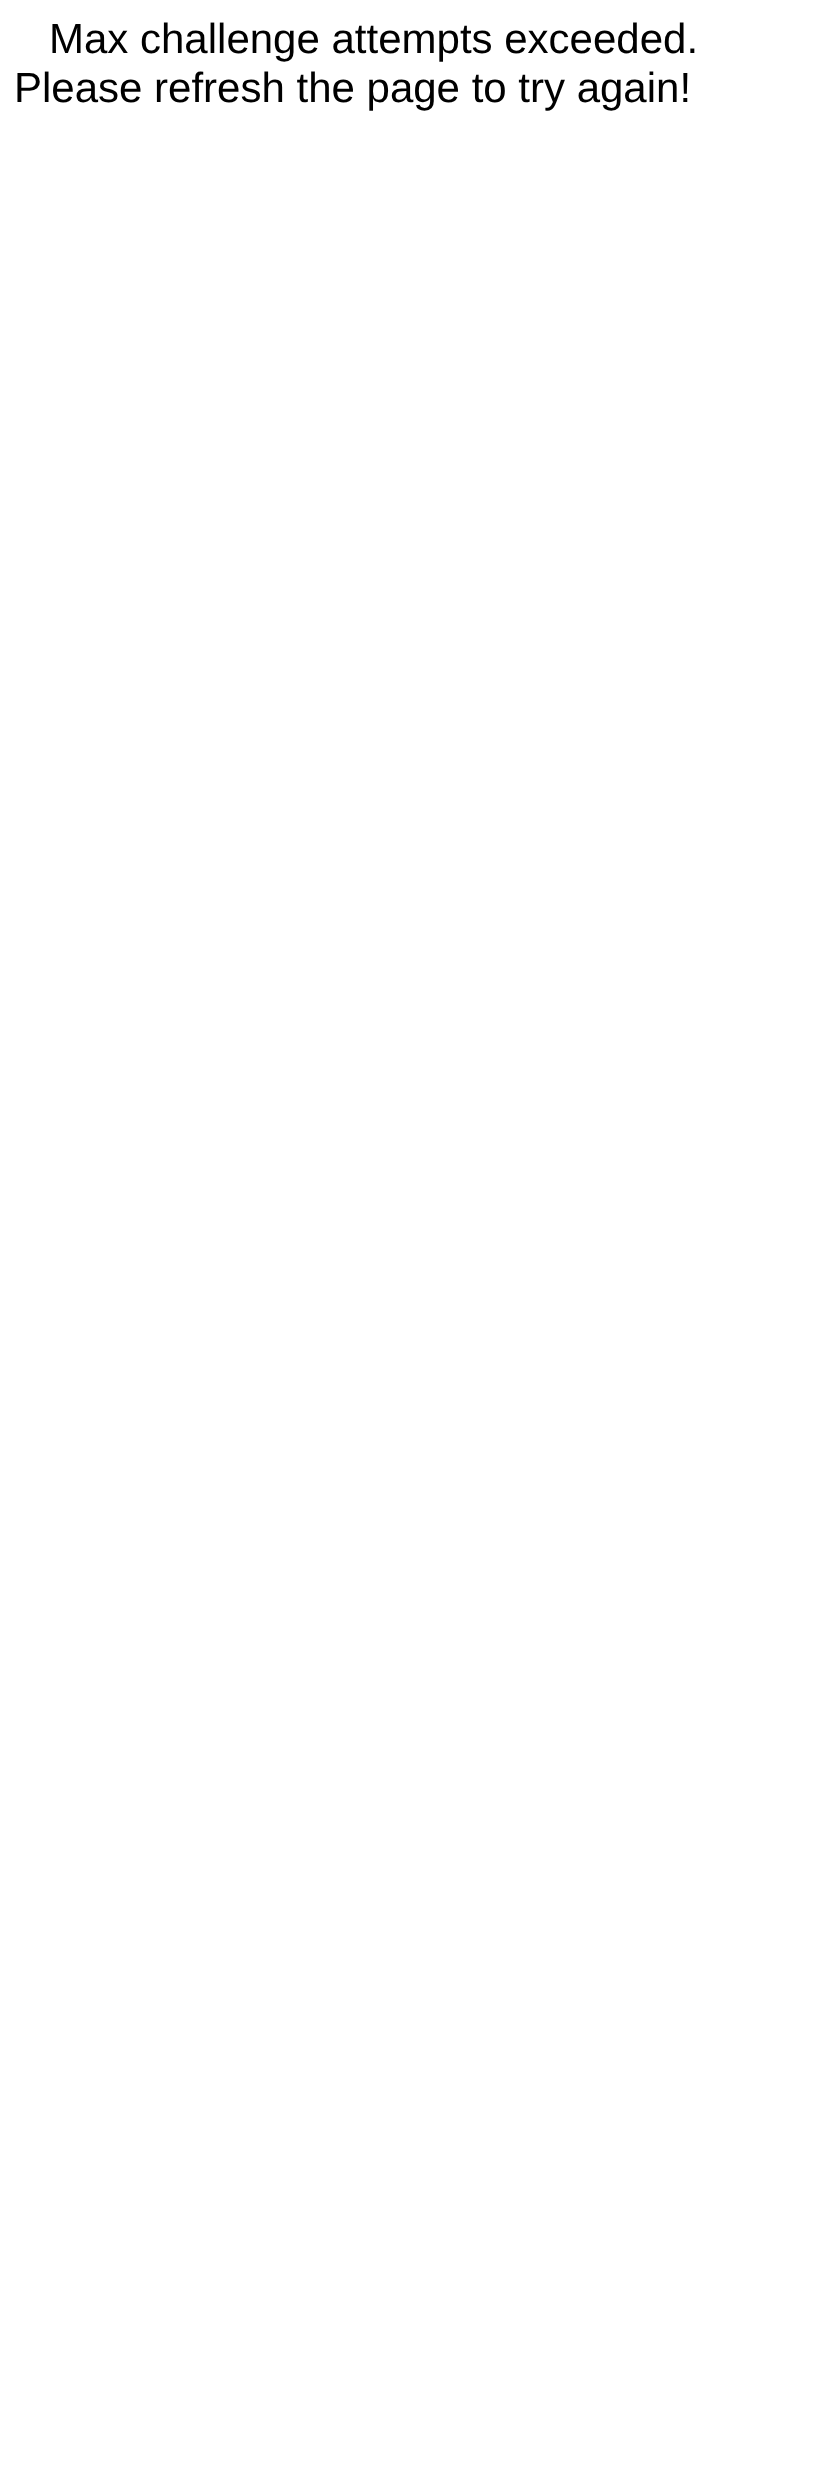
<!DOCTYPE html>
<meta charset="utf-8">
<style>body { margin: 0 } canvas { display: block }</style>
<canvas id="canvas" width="816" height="2474"></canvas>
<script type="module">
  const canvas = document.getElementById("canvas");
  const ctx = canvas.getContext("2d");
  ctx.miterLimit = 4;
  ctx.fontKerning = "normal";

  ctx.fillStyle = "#ffffff";
  ctx.fillRect(0, 0, 816, 2474);
  ctx.font = "42px Liberation Sans";
  ctx.fillStyle = "#000000";
  ctx.fillText("Max challenge attempts exceeded.", 49, 53);
  ctx.fillText("Please refresh the page to try again!", 14, 102);
</script>
